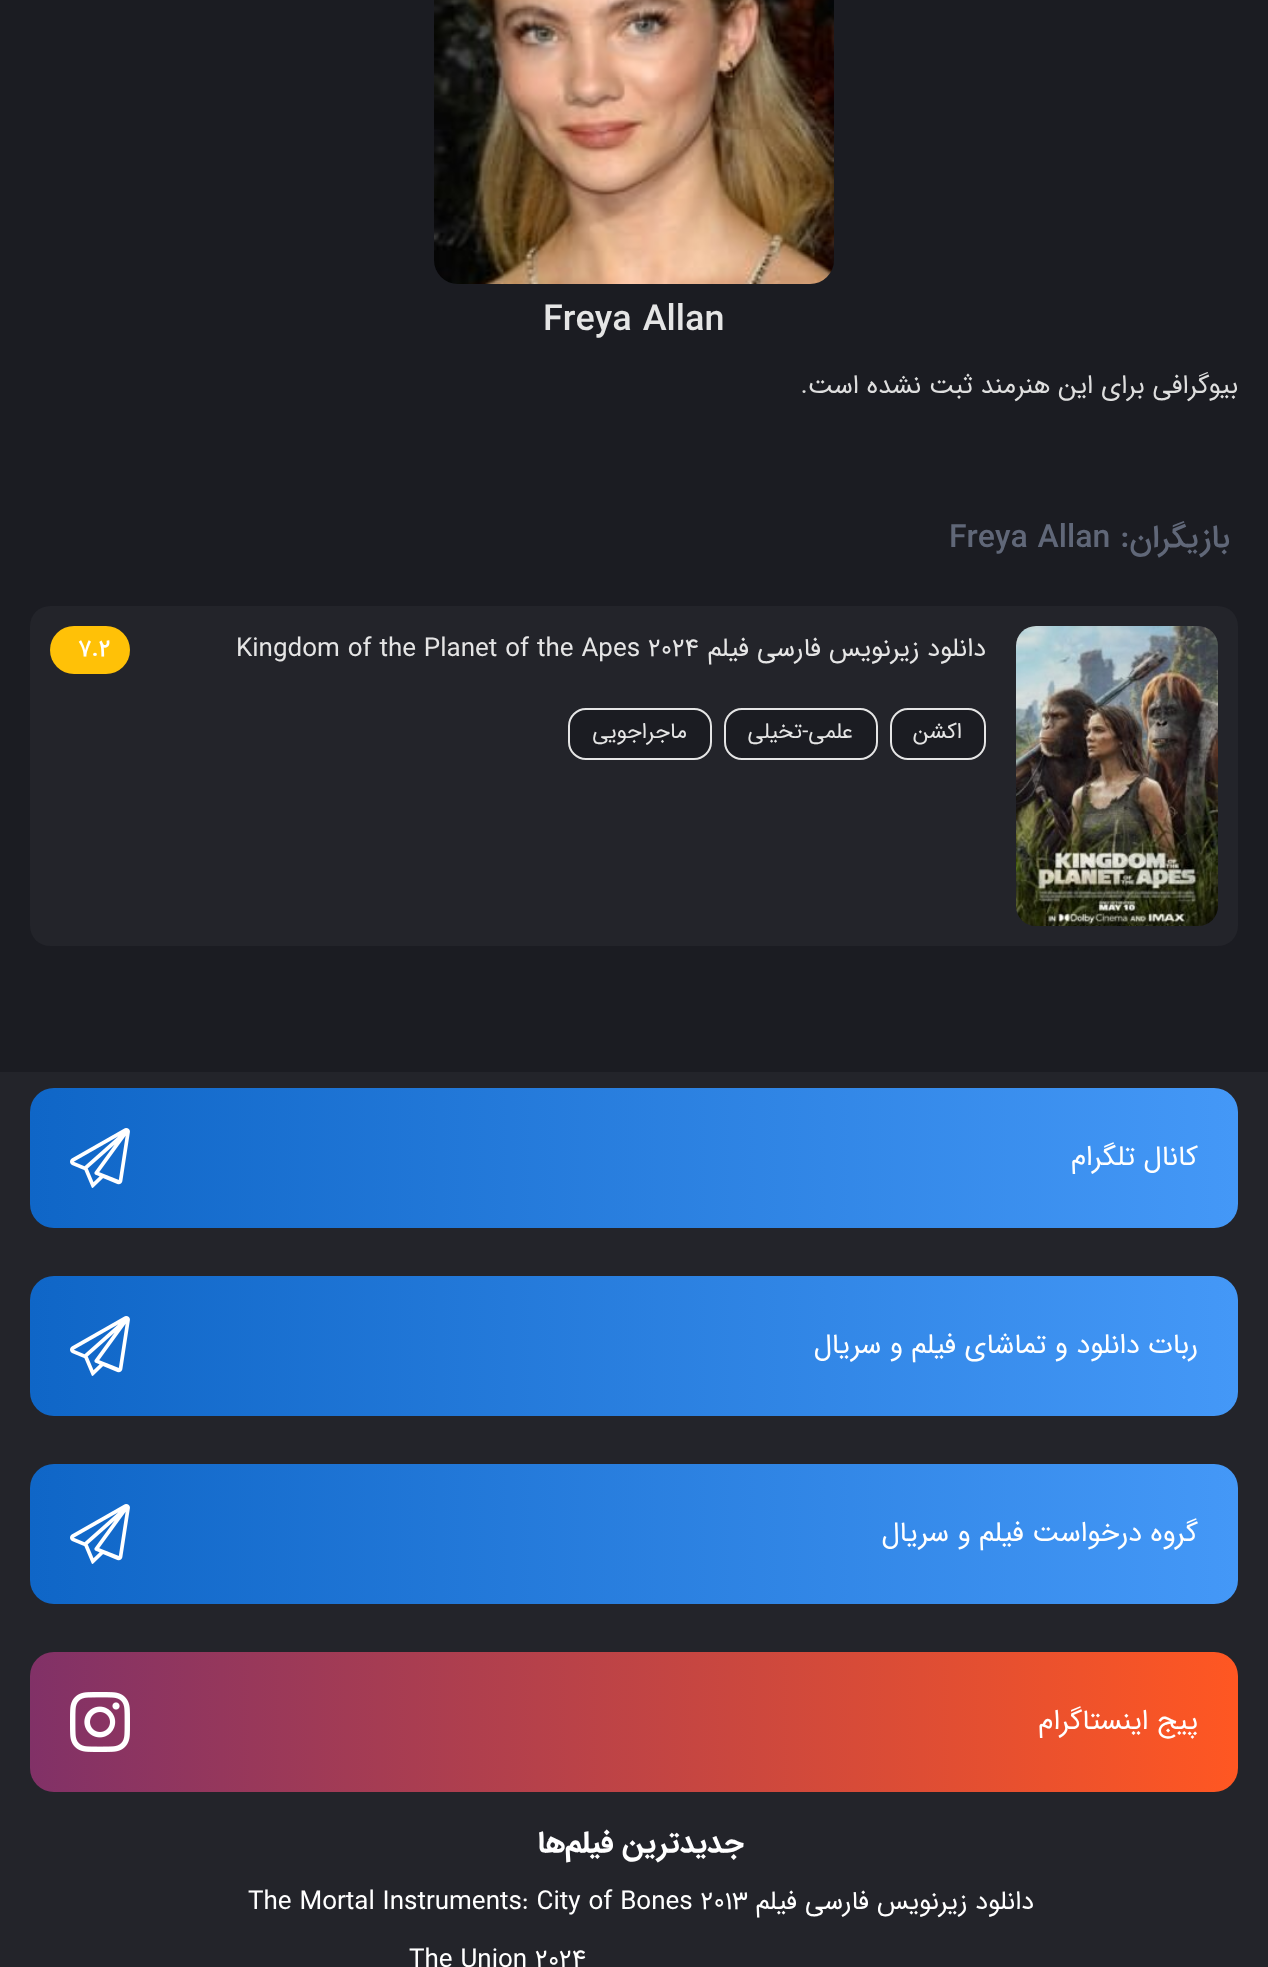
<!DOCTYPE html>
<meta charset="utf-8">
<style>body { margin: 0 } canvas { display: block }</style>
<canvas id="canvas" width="1268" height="1967"></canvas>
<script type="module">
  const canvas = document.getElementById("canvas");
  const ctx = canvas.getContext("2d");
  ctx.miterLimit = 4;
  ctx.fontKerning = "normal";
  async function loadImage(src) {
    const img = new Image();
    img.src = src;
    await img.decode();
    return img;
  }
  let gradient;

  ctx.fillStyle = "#1b1c22";
  ctx.fillRect(0, 0, 1268, 1967);
  ctx.drawImage(await loadImage("img1.png"), 434, 0, 400, 284);
  ctx.font = "500 36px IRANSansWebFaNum";
  ctx.fillStyle = "#e5e5e5";
  ctx.fillText("Freya Allan", 543, 330);
  ctx.direction = "rtl";
  ctx.font = "26px IRANSansWebFaNum";
  ctx.fillStyle = "#dedede";
  ctx.fillText("بیوگرافی برای این هنرمند ثبت نشده است.", 1238, 393);
  ctx.font = "500 32px IRANSansWebFaNum";
  ctx.fillStyle = "#606778";
  ctx.fillText("بازیگران:", 1230, 547);
  ctx.direction = "ltr";
  ctx.fillText("Freya Allan", 949, 547);
  ctx.fillStyle = "#23242a";
  ctx.beginPath();
  ctx.roundRect(30, 606, 1208, 340, 20);
  ctx.fill();
  ctx.drawImage(await loadImage("img2.png"), 1016, 626, 202, 300);
  ctx.direction = "rtl";
  ctx.font = "26px IRANSansWebFaNum";
  ctx.fillStyle = "#e5e5e5";
  ctx.fillText("دانلود زیرنویس فارسی فیلم", 986, 656);
  ctx.direction = "ltr";
  ctx.fillText("Kingdom of the Planet of the Apes 2024", 236, 656);
  ctx.fillStyle = "#ffc107";
  ctx.beginPath();
  ctx.roundRect(50, 626, 80, 48, 24);
  ctx.fill();
  ctx.font = "500 24px IRANSansWebFaNum";
  ctx.fillStyle = "#ffffff";
  ctx.fillText("7.2", 78, 656);
  ctx.fillStyle = "#1b1c22";
  ctx.beginPath();
  ctx.roundRect(891, 709, 94, 50, 17);
  ctx.fill();
  ctx.strokeStyle = "#e5e5e5";
  ctx.lineWidth = 2;
  ctx.stroke();
  ctx.direction = "rtl";
  ctx.font = "22px IRANSansWebFaNum";
  ctx.fillStyle = "#e5e5e5";
  ctx.fillText("اکشن", 962, 738);
  ctx.fillStyle = "#1b1c22";
  ctx.beginPath();
  ctx.roundRect(725, 709, 152, 50, 17);
  ctx.fill();
  ctx.stroke();
  ctx.fillStyle = "#e5e5e5";
  ctx.fillText("علمی-تخیلی", 853, 738);
  ctx.fillStyle = "#1b1c22";
  ctx.beginPath();
  ctx.roundRect(569, 709, 142, 50, 17);
  ctx.fill();
  ctx.stroke();
  ctx.fillStyle = "#e5e5e5";
  ctx.fillText("ماجراجویی", 687, 738);
  ctx.fillStyle = "#23242a";
  ctx.fillRect(0, 1072, 1268, 895);
  gradient = ctx.createLinearGradient(30, 1158, 1238, 1158);
  gradient.addColorStop(0, "#0f66c7");
  gradient.addColorStop(1, "#4498f7");
  ctx.fillStyle = gradient;
  ctx.beginPath();
  ctx.roundRect(30, 1088, 1208, 140, 24);
  ctx.fill();
  ctx.font = "28px IRANSansWebFaNum";
  ctx.fillStyle = "#ffffff";
  ctx.fillText("کانال تلگرام", 1198, 1165);
  ctx.drawImage(await loadImage("img3.png"), 70, 1128, 60, 60);
  gradient = ctx.createLinearGradient(30, 1346, 1238, 1346);
  gradient.addColorStop(0, "#0f66c7");
  gradient.addColorStop(1, "#4498f7");
  ctx.fillStyle = gradient;
  ctx.beginPath();
  ctx.roundRect(30, 1276, 1208, 140, 24);
  ctx.fill();
  ctx.fillStyle = "#ffffff";
  ctx.fillText("ربات دانلود و تماشای فیلم و سریال", 1198, 1353);
  ctx.drawImage(await loadImage("img3.png"), 70, 1316, 60, 60);
  gradient = ctx.createLinearGradient(30, 1534, 1238, 1534);
  gradient.addColorStop(0, "#0f66c7");
  gradient.addColorStop(1, "#4498f7");
  ctx.fillStyle = gradient;
  ctx.beginPath();
  ctx.roundRect(30, 1464, 1208, 140, 24);
  ctx.fill();
  ctx.fillStyle = "#ffffff";
  ctx.fillText("گروه درخواست فیلم و سریال", 1198, 1541);
  ctx.drawImage(await loadImage("img3.png"), 70, 1504, 60, 60);
  gradient = ctx.createLinearGradient(30, 1722, 1238, 1722);
  gradient.addColorStop(0, "#813167");
  gradient.addColorStop(1, "#ff5722");
  ctx.fillStyle = gradient;
  ctx.beginPath();
  ctx.roundRect(30, 1652, 1208, 140, 24);
  ctx.fill();
  ctx.fillStyle = "#ffffff";
  ctx.fillText("پیج اینستاگرام", 1198, 1729);
  ctx.drawImage(await loadImage("img4.png"), 70, 1692, 60, 60);
  ctx.font = "bold 30px IRANSansWebFaNum";
  ctx.fillText("جدیدترین فیلم‌ها", 744, 1852);
  ctx.font = "26px IRANSansWebFaNum";
  ctx.fillText("دانلود زیرنویس فارسی فیلم", 1034, 1909);
  ctx.direction = "ltr";
  ctx.fillText("The Mortal Instruments: City of Bones 2013", 248, 1909);
  ctx.fillText("The Union 2024", 409, 1967);
</script>
